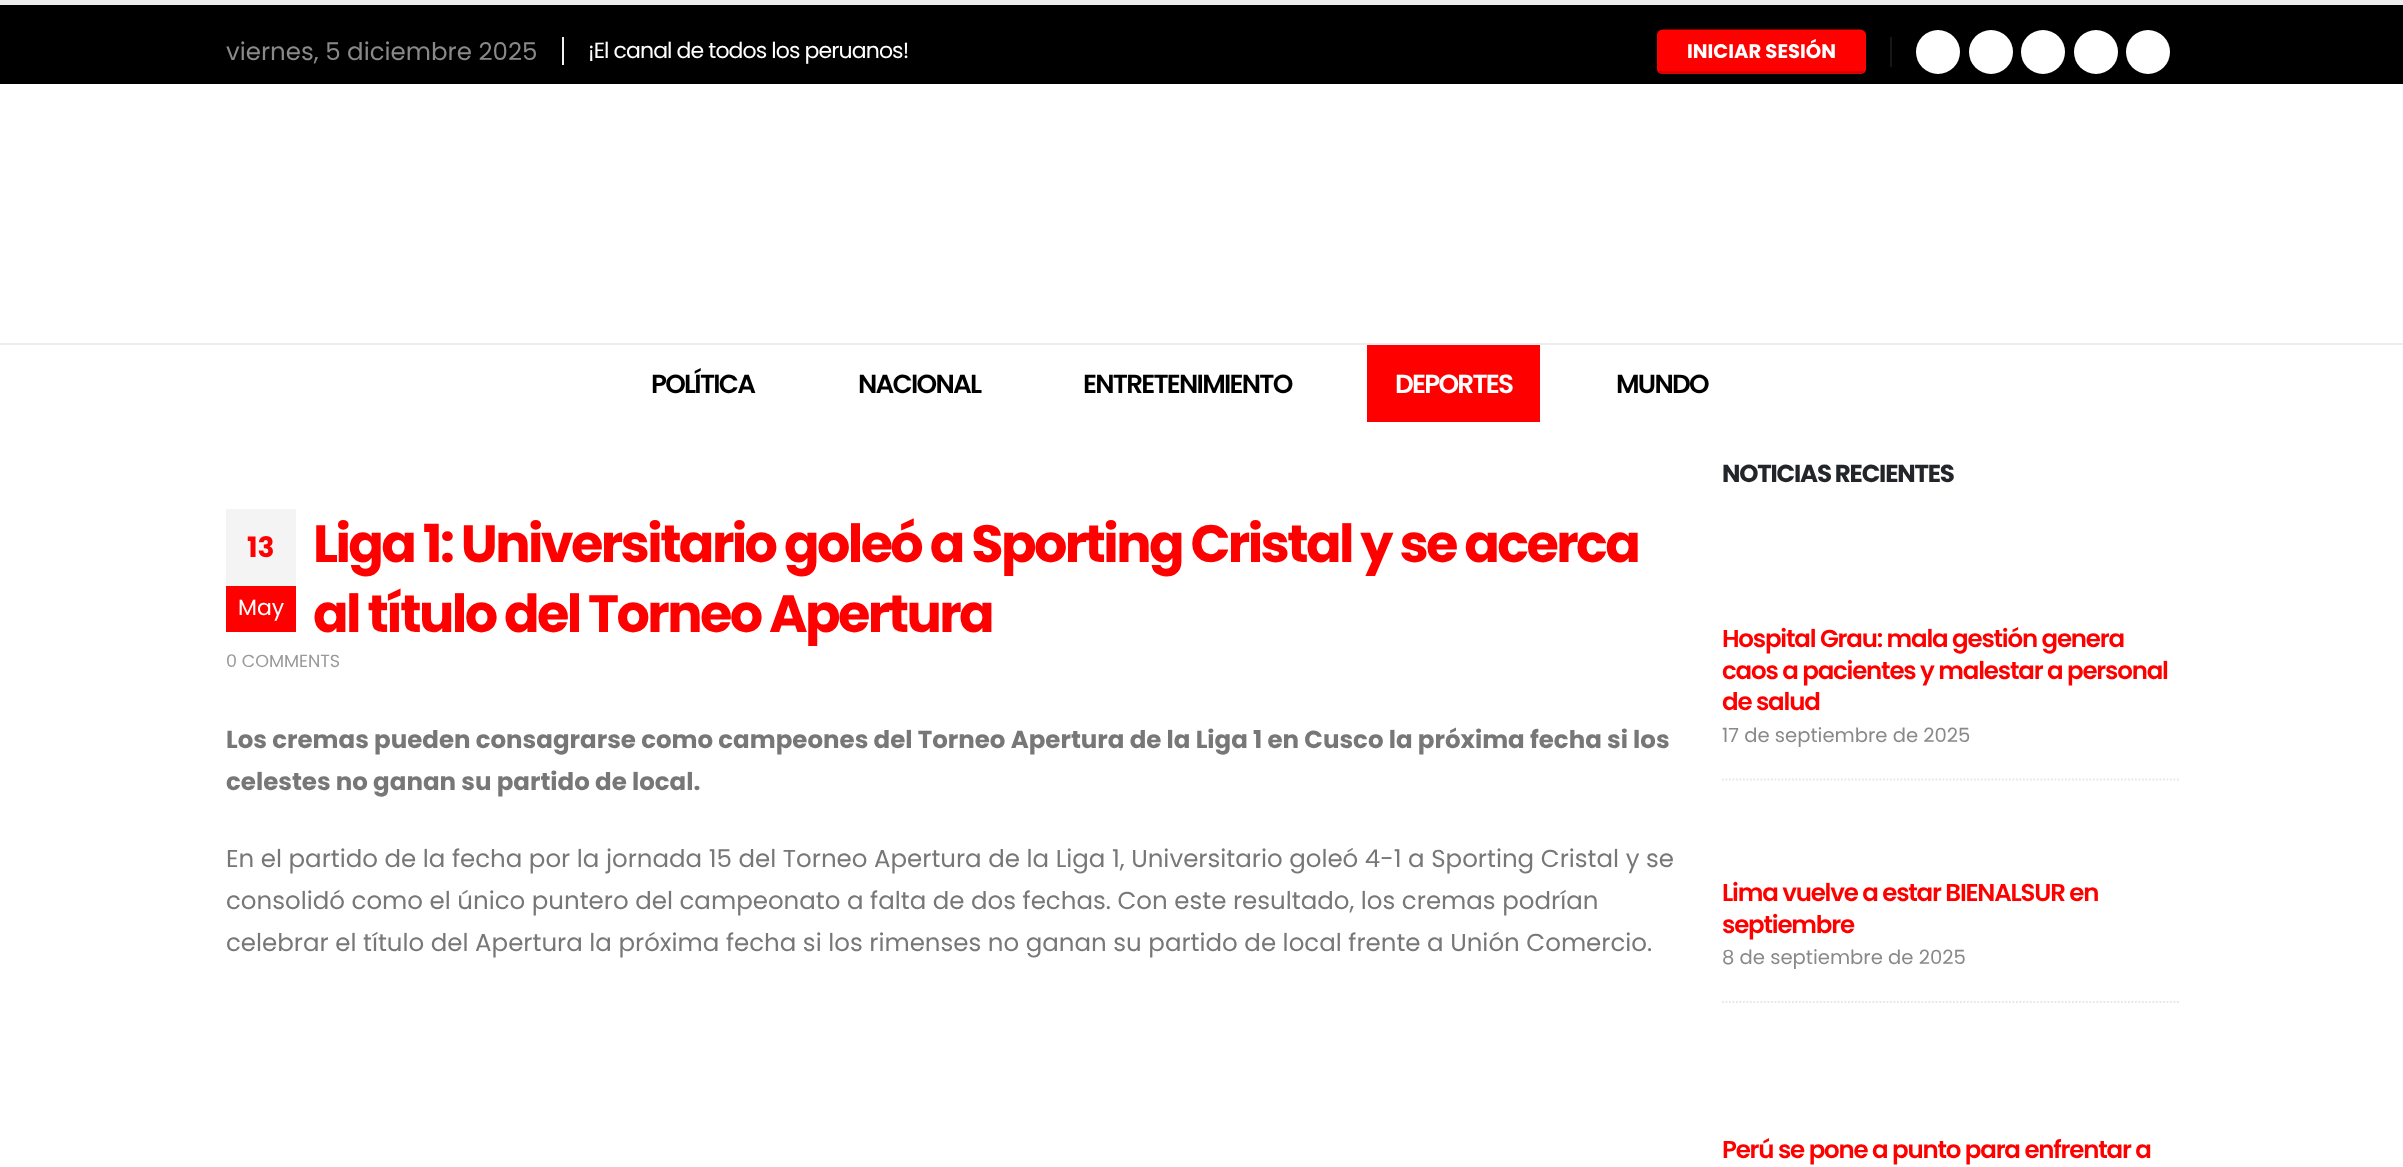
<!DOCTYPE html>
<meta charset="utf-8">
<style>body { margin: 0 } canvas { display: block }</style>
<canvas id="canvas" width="2403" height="1167"></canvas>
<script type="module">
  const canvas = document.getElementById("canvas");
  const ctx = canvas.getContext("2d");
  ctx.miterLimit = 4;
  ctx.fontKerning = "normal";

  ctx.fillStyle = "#ffffff";
  ctx.fillRect(0, 0, 2403, 1167);
  ctx.fillStyle = "#ededed";
  ctx.fillRect(0, 0, 2403, 5);
  ctx.fillStyle = "#000000";
  ctx.fillRect(0, 5, 2403, 79);
  ctx.font = "24.5px Poppins";
  ctx.fillStyle = "#898989";
  ctx.fillText("viernes, 5 diciembre 2025", 226, 60);
  ctx.fillStyle = "#f2f2f2";
  ctx.fillRect(562, 37, 2, 28);
  ctx.letterSpacing = "-0.9px";
  ctx.font = "22px Poppins";
  ctx.fillStyle = "#ffffff";
  ctx.fillText("¡El canal de todos los peruanos!", 588, 58);
  ctx.fillStyle = "#ff0000";
  ctx.beginPath();
  ctx.roundRect(1657, 30, 209, 44, 5);
  ctx.fill();
  ctx.beginPath();
  ctx.moveTo(1863, 71);
  ctx.bezierCurveTo(1862.5, 72, 1861, 72.5, 1860, 72.5);
  ctx.lineTo(1663, 72.5);
  ctx.bezierCurveTo(1661.5, 72.5, 1660.5, 72, 1659.5, 71);
  ctx.strokeStyle = "#cc0000";
  ctx.lineWidth = 1.8;
  ctx.stroke();
  ctx.beginPath();
  ctx.moveTo(1659.5, 71);
  ctx.bezierCurveTo(1658.5, 70.5, 1658, 69, 1658, 68);
  ctx.lineTo(1658, 35.5);
  ctx.bezierCurveTo(1658, 34, 1658.5, 33, 1659.5, 32);
  ctx.bezierCurveTo(1660.5, 31, 1661.5, 30.5, 1663, 30.5);
  ctx.lineTo(1860, 30.5);
  ctx.bezierCurveTo(1861, 30.5, 1862.5, 31, 1863, 32);
  ctx.bezierCurveTo(1864, 33, 1864.5, 34, 1864.5, 35.5);
  ctx.lineTo(1864.5, 68);
  ctx.bezierCurveTo(1864.5, 69, 1864, 70.5, 1863, 71);
  ctx.strokeStyle = "#ff0000";
  ctx.stroke();
  ctx.letterSpacing = "0px";
  ctx.font = "bold 19.6px Poppins";
  ctx.fillStyle = "#ffffff";
  ctx.fillText("INICIAR SESIÓN", 1687, 58);
  ctx.fillStyle = "#171717";
  ctx.fillRect(1890, 37, 2, 30);
  ctx.fillStyle = "#ffffff";
  ctx.beginPath();
  ctx.arc(1938, 52, 22, 0, Math.PI * 2);
  ctx.fill();
  ctx.beginPath();
  ctx.arc(1991, 52, 22, 0, Math.PI * 2);
  ctx.fill();
  ctx.beginPath();
  ctx.arc(2043, 52, 22, 0, Math.PI * 2);
  ctx.fill();
  ctx.beginPath();
  ctx.arc(2096, 52, 22, 0, Math.PI * 2);
  ctx.fill();
  ctx.beginPath();
  ctx.arc(2148, 52, 22, 0, Math.PI * 2);
  ctx.fill();
  ctx.fillStyle = "#ededed";
  ctx.fillRect(0, 343, 2403, 2);
  ctx.letterSpacing = "-1.75px";
  ctx.font = "600 26.25px Poppins";
  ctx.fillStyle = "#000000";
  ctx.fillText("POLÍTICA", 651, 393);
  ctx.fillText("NACIONAL", 858, 393);
  ctx.fillText("ENTRETENIMIENTO", 1083, 393);
  ctx.fillStyle = "#ff0000";
  ctx.fillRect(1367, 345, 173, 77);
  ctx.fillStyle = "#ffffff";
  ctx.fillText("DEPORTES", 1395, 393);
  ctx.fillStyle = "#000000";
  ctx.fillText("MUNDO", 1616, 393);
  ctx.fillStyle = "#f4f4f4";
  ctx.fillRect(226, 509, 70, 77);
  ctx.letterSpacing = "0px";
  ctx.font = "bold 28px Poppins";
  ctx.fillStyle = "#ff0000";
  ctx.fillText("13", 247, 557);
  ctx.fillRect(226, 586, 70, 46);
  ctx.font = "22px Poppins";
  ctx.fillStyle = "#ffffff";
  ctx.fillText("May", 238, 615);
  ctx.letterSpacing = "-2.62px";
  ctx.font = "bold 52.5px Poppins";
  ctx.fillStyle = "#ff0000";
  ctx.fillText("Liga 1: Universitario goleó a Sporting Cristal y se acerca", 313, 562);
  ctx.fillText("al título del Torneo Apertura", 313, 632);
  ctx.letterSpacing = "0px";
  ctx.font = "17.5px Poppins";
  ctx.fillStyle = "#999999";
  ctx.fillText("0 COMMENTS", 226, 667);
  ctx.font = "bold 24.5px Poppins";
  ctx.fillStyle = "#777777";
  ctx.fillText("Los cremas pueden consagrarse como campeones del Torneo Apertura de la Liga 1 en Cusco la próxima fecha si los", 226, 748);
  ctx.fillText("celestes no ganan su partido de local.", 226, 790);
  ctx.font = "24.5px Poppins";
  ctx.fillText("En el partido de la fecha por la jornada 15 del Torneo Apertura de la Liga 1, Universitario goleó 4-1 a Sporting Cristal y se", 226, 867);
  ctx.fillText("consolidó como el único puntero del campeonato a falta de dos fechas. Con este resultado, los cremas podrían", 226, 909);
  ctx.fillText("celebrar el título del Apertura la próxima fecha si los rimenses no ganan su partido de local frente a Unión Comercio.", 226, 951);
  ctx.letterSpacing = "-1.2px";
  ctx.font = "bold 24.5px Poppins";
  ctx.fillStyle = "#222529";
  ctx.fillText("NOTICIAS RECIENTES", 1722, 482);
  ctx.font = "600 24.5px Poppins";
  ctx.fillStyle = "#ff0000";
  ctx.fillText("Hospital Grau: mala gestión genera", 1722, 647);
  ctx.fillText("caos a pacientes y malestar a personal", 1722, 679);
  ctx.fillText("de salud", 1722, 710);
  ctx.letterSpacing = "0px";
  ctx.font = "19.6px Poppins";
  ctx.fillStyle = "#898989";
  ctx.fillText("17 de septiembre de 2025", 1722, 742);
  ctx.beginPath();
  ctx.moveTo(1722, 779.5);
  ctx.lineTo(2179, 779.5);
  ctx.strokeStyle = "#e7e7e7";
  ctx.setLineDash([1.75, 1.75]);
  ctx.stroke();
  ctx.letterSpacing = "-1.2px";
  ctx.font = "600 24.5px Poppins";
  ctx.fillStyle = "#ff0000";
  ctx.fillText("Lima vuelve a estar BIENALSUR en", 1722, 901);
  ctx.fillText("septiembre", 1722, 933);
  ctx.letterSpacing = "0px";
  ctx.font = "19.6px Poppins";
  ctx.fillStyle = "#898989";
  ctx.fillText("8 de septiembre de 2025", 1722, 964);
  ctx.beginPath();
  ctx.moveTo(1722, 1002);
  ctx.lineTo(2179, 1002);
  ctx.stroke();
  ctx.letterSpacing = "-1.2px";
  ctx.font = "600 24.5px Poppins";
  ctx.fillStyle = "#ff0000";
  ctx.fillText("Perú se pone a punto para enfrentar a", 1722, 1158);
</script>
